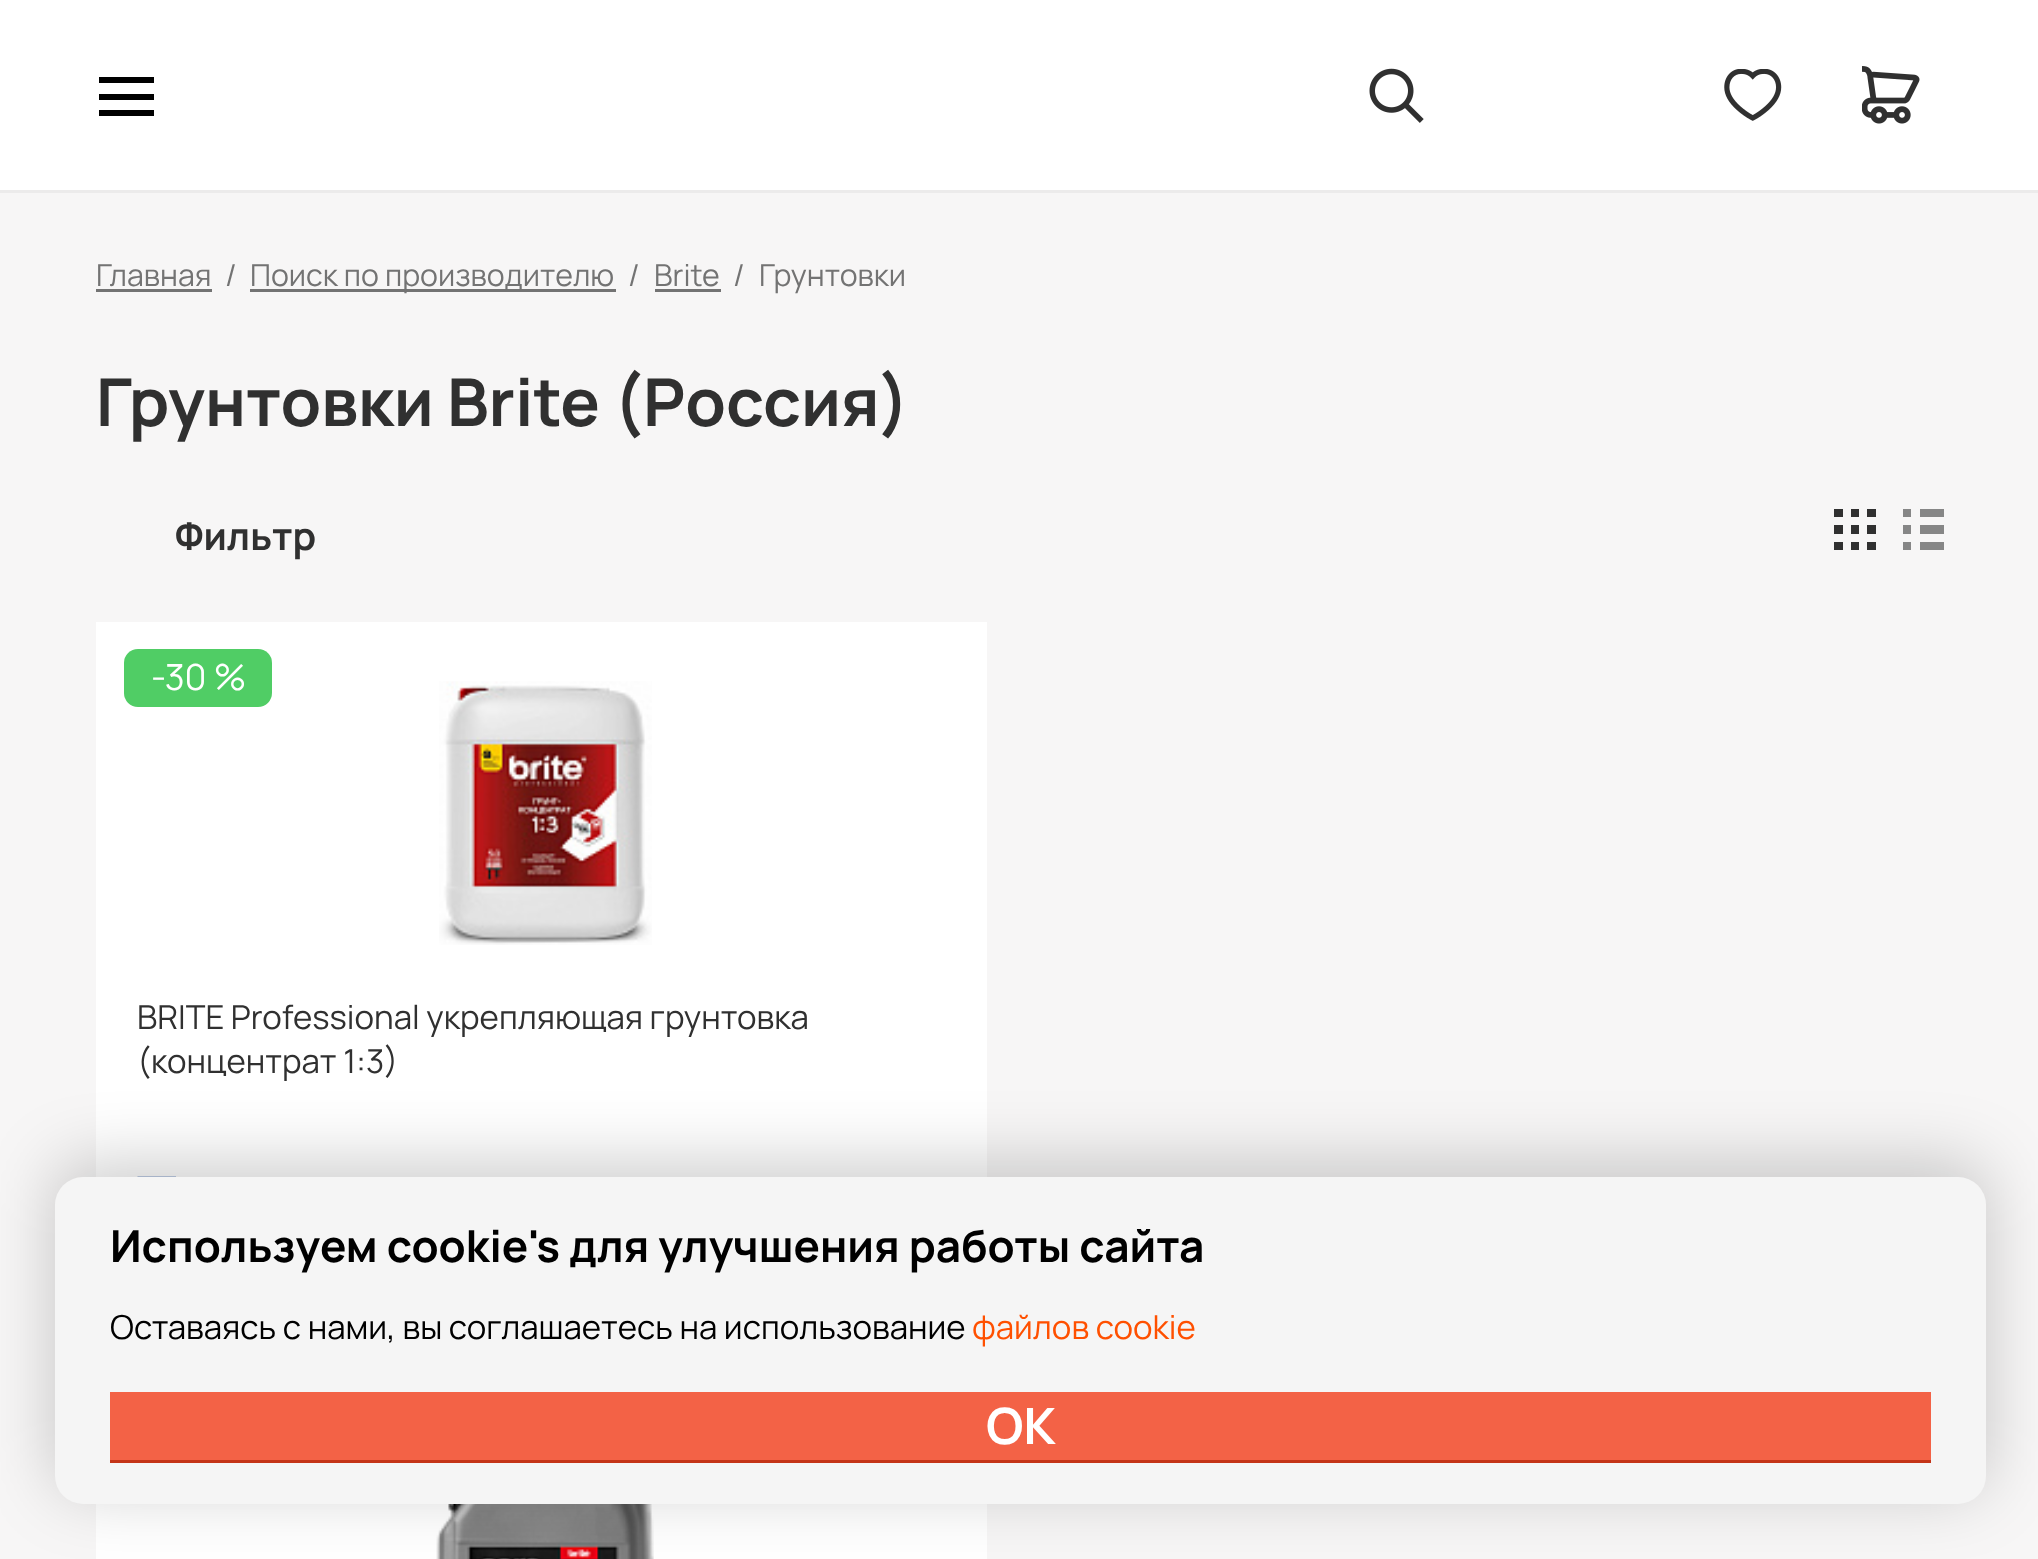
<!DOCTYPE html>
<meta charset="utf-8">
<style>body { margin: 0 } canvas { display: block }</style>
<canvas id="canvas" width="2038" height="1559"></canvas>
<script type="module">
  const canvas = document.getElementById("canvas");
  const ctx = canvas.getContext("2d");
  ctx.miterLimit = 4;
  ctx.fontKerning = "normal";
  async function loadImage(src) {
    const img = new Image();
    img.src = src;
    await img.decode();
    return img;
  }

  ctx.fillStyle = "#f7f6f6";
  ctx.fillRect(0, 0, 2038, 1559);
  ctx.fillStyle = "#ffffff";
  ctx.fillRect(0, 0, 2038, 190);
  ctx.fillStyle = "#ecebeb";
  ctx.fillRect(0, 190, 2038, 3);
  ctx.fillStyle = "#000000";
  ctx.fillRect(99, 94, 55, 6);
  ctx.fillRect(99, 77, 55, 6);
  ctx.fillRect(99, 110, 55, 6);
  ctx.drawImage(await loadImage("img1.png"), 1369, 68, 55, 55);
  ctx.drawImage(await loadImage("img2.png"), 1724, 69, 58, 52);
  ctx.drawImage(await loadImage("img3.png"), 1862, 66, 58, 58);
  ctx.font = "30.25px Manrope";
  ctx.fillStyle = "#737373";
  ctx.fillText("Главная", 96, 286);
  ctx.fillRect(96, 289, 116, 3);
  ctx.fillText("/", 225, 286);
  ctx.fillRect(250, 289, 366, 3);
  ctx.fillText("Поиск по производителю", 250, 286);
  ctx.fillText("/", 628, 286);
  ctx.fillText("Brite", 654, 286);
  ctx.fillRect(655, 289, 66, 3);
  ctx.fillText("/", 733, 286);
  ctx.fillText("Грунтовки", 759, 286);
  ctx.font = "bold 66px Manrope";
  ctx.fillStyle = "#303030";
  ctx.fillText("Грунтовки Brite (Россия)", 96, 426);
  ctx.font = "bold 38.5px Manrope";
  ctx.fillText("Фильтр", 175, 550);
  ctx.drawImage(await loadImage("img4.png"), 1834, 509, 42, 41);
  ctx.fillStyle = "#868686";
  ctx.fillRect(1903, 509, 8, 8);
  ctx.fillRect(1903, 525, 8, 9);
  ctx.fillRect(1903, 542, 8, 8);
  ctx.fillRect(1920, 509, 24, 8);
  ctx.fillRect(1920, 525, 24, 9);
  ctx.fillRect(1920, 542, 24, 8);
  ctx.fillStyle = "#ffffff";
  ctx.fillRect(96, 622, 891, 555);
  ctx.fillStyle = "#50cd65";
  ctx.beginPath();
  ctx.roundRect(124, 649, 148, 58, 14);
  ctx.fill();
  ctx.font = "36px Manrope";
  ctx.fillStyle = "#ffffff";
  ctx.fillText("-30 %", 151, 690);
  ctx.drawImage(await loadImage("img5.png"), 439, 681, 213, 264);
  ctx.font = "33px Manrope";
  ctx.fillStyle = "#303030";
  ctx.fillText("BRITE Professional укрепляющая грунтовка", 137, 1029);
  ctx.fillText("(концентрат 1:3)", 137, 1073);
  ctx.drawImage(await loadImage("img6.png"), 137, 1176, 39, 1);
  ctx.fillStyle = "#ffffff";
  ctx.fillRect(96, 1504, 891, 55);
  ctx.drawImage(await loadImage("img7.png"), 436, 1504, 218, 55);
  ctx.fillStyle = "rgba(0, 0, 0, 0.2)";
  ctx.filter = "blur(34.5px)";
  ctx.beginPath();
  ctx.roundRect(55, 1163, 1931, 328, 28);
  ctx.fill();
  ctx.filter = "none";
  ctx.fillStyle = "#f5f5f5";
  ctx.beginPath();
  ctx.roundRect(55, 1177, 1931, 327, 28);
  ctx.fill();
  ctx.wordSpacing = "0.25px";
  ctx.font = "bold 44px Manrope";
  ctx.fillStyle = "#000000";
  ctx.fillText("Используем cookie's для улучшения работы сайта", 110, 1262);
  ctx.wordSpacing = "0px";
  ctx.font = "33px Manrope";
  ctx.fillText("Оставаясь с нами, вы соглашаетесь на использование", 110, 1339);
  ctx.fillStyle = "#ff5000";
  ctx.fillText("файлов cookie", 972, 1339);
  ctx.fillStyle = "#f36246";
  ctx.fillRect(110, 1392, 1821, 68);
  ctx.fillStyle = "#c43417";
  ctx.fillRect(110, 1460, 1821, 3);
  ctx.font = "bold 50px Manrope";
  ctx.fillStyle = "#ffffff";
  ctx.fillText("ОК", 986, 1444);
</script>
